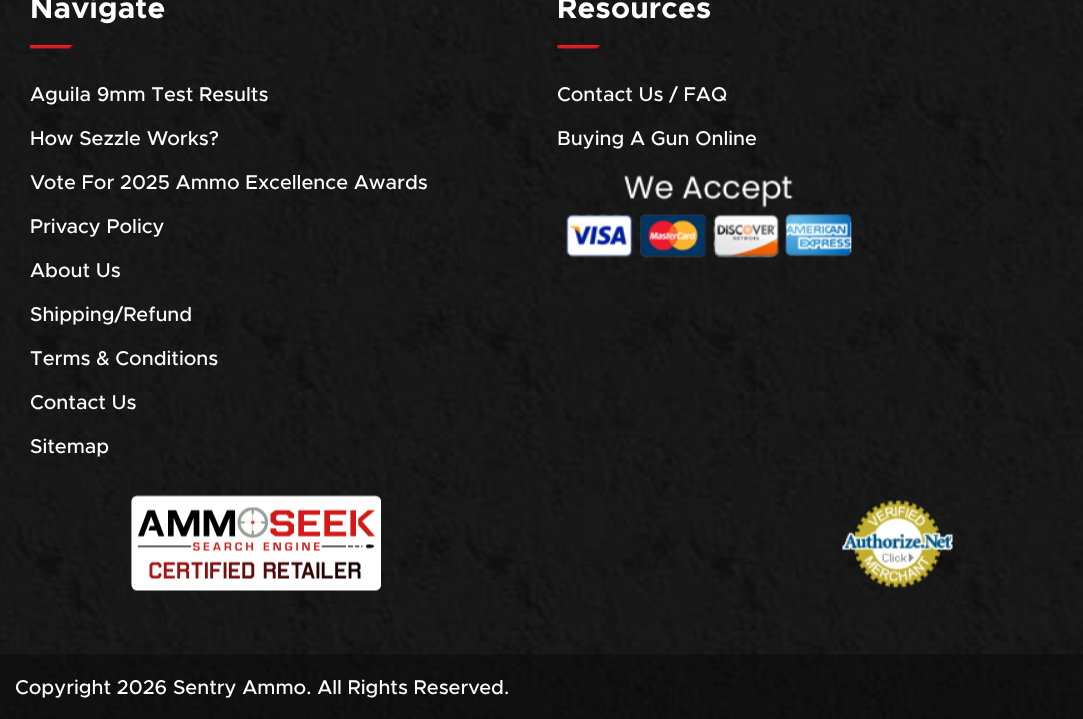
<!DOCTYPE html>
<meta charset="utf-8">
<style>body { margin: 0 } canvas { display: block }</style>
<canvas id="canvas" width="1083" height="719"></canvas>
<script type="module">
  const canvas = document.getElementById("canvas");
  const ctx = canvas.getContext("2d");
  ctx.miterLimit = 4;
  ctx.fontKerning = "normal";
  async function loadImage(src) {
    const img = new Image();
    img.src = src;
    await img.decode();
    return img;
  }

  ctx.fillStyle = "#ffffff";
  ctx.fillRect(0, 0, 1083, 719);
  ctx.drawImage(await loadImage("img1.png"), 0, 0, 1083, 719);
  ctx.letterSpacing = "0.25px";
  ctx.font = "bold 30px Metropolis";
  ctx.fillText("Navigate", 30, 18);
  ctx.drawImage(await loadImage("img2.png"), 30, 45, 44, 4);
  ctx.letterSpacing = "0px";
  ctx.font = "500 20px Metropolis";
  ctx.fillText("Aguila 9mm Test Results", 30, 101);
  ctx.fillText("How Sezzle Works?", 30, 145);
  ctx.fillText("Vote For 2025 Ammo Excellence Awards", 30, 189);
  ctx.fillText("Privacy Policy", 30, 233);
  ctx.fillText("About Us", 30, 277);
  ctx.fillText("Shipping/Refund", 30, 321);
  ctx.fillText("Terms & Conditions", 30, 365);
  ctx.fillText("Contact Us", 30, 409);
  ctx.fillText("Sitemap", 30, 453);
  ctx.letterSpacing = "0.25px";
  ctx.font = "bold 30px Metropolis";
  ctx.fillText("Resources", 557, 18);
  ctx.drawImage(await loadImage("img3.png"), 557, 45, 45, 4);
  ctx.letterSpacing = "0px";
  ctx.font = "500 20px Metropolis";
  ctx.fillText("Contact Us / FAQ", 557, 101);
  ctx.fillText("Buying A Gun Online", 557, 145);
  ctx.drawImage(await loadImage("img4.png"), 566, 175, 286, 83);
  ctx.drawImage(await loadImage("img5.png"), 131, 495, 250, 96);
  ctx.drawImage(await loadImage("img6.png"), 842, 500, 111, 88);
  ctx.fillStyle = "rgba(0, 0, 0, 0.3)";
  ctx.fillRect(0, 654, 1083, 65);
  ctx.fillStyle = "#ffffff";
  ctx.fillText("Copyright 2026 Sentry Ammo. All Rights Reserved.", 15, 694);
</script>
